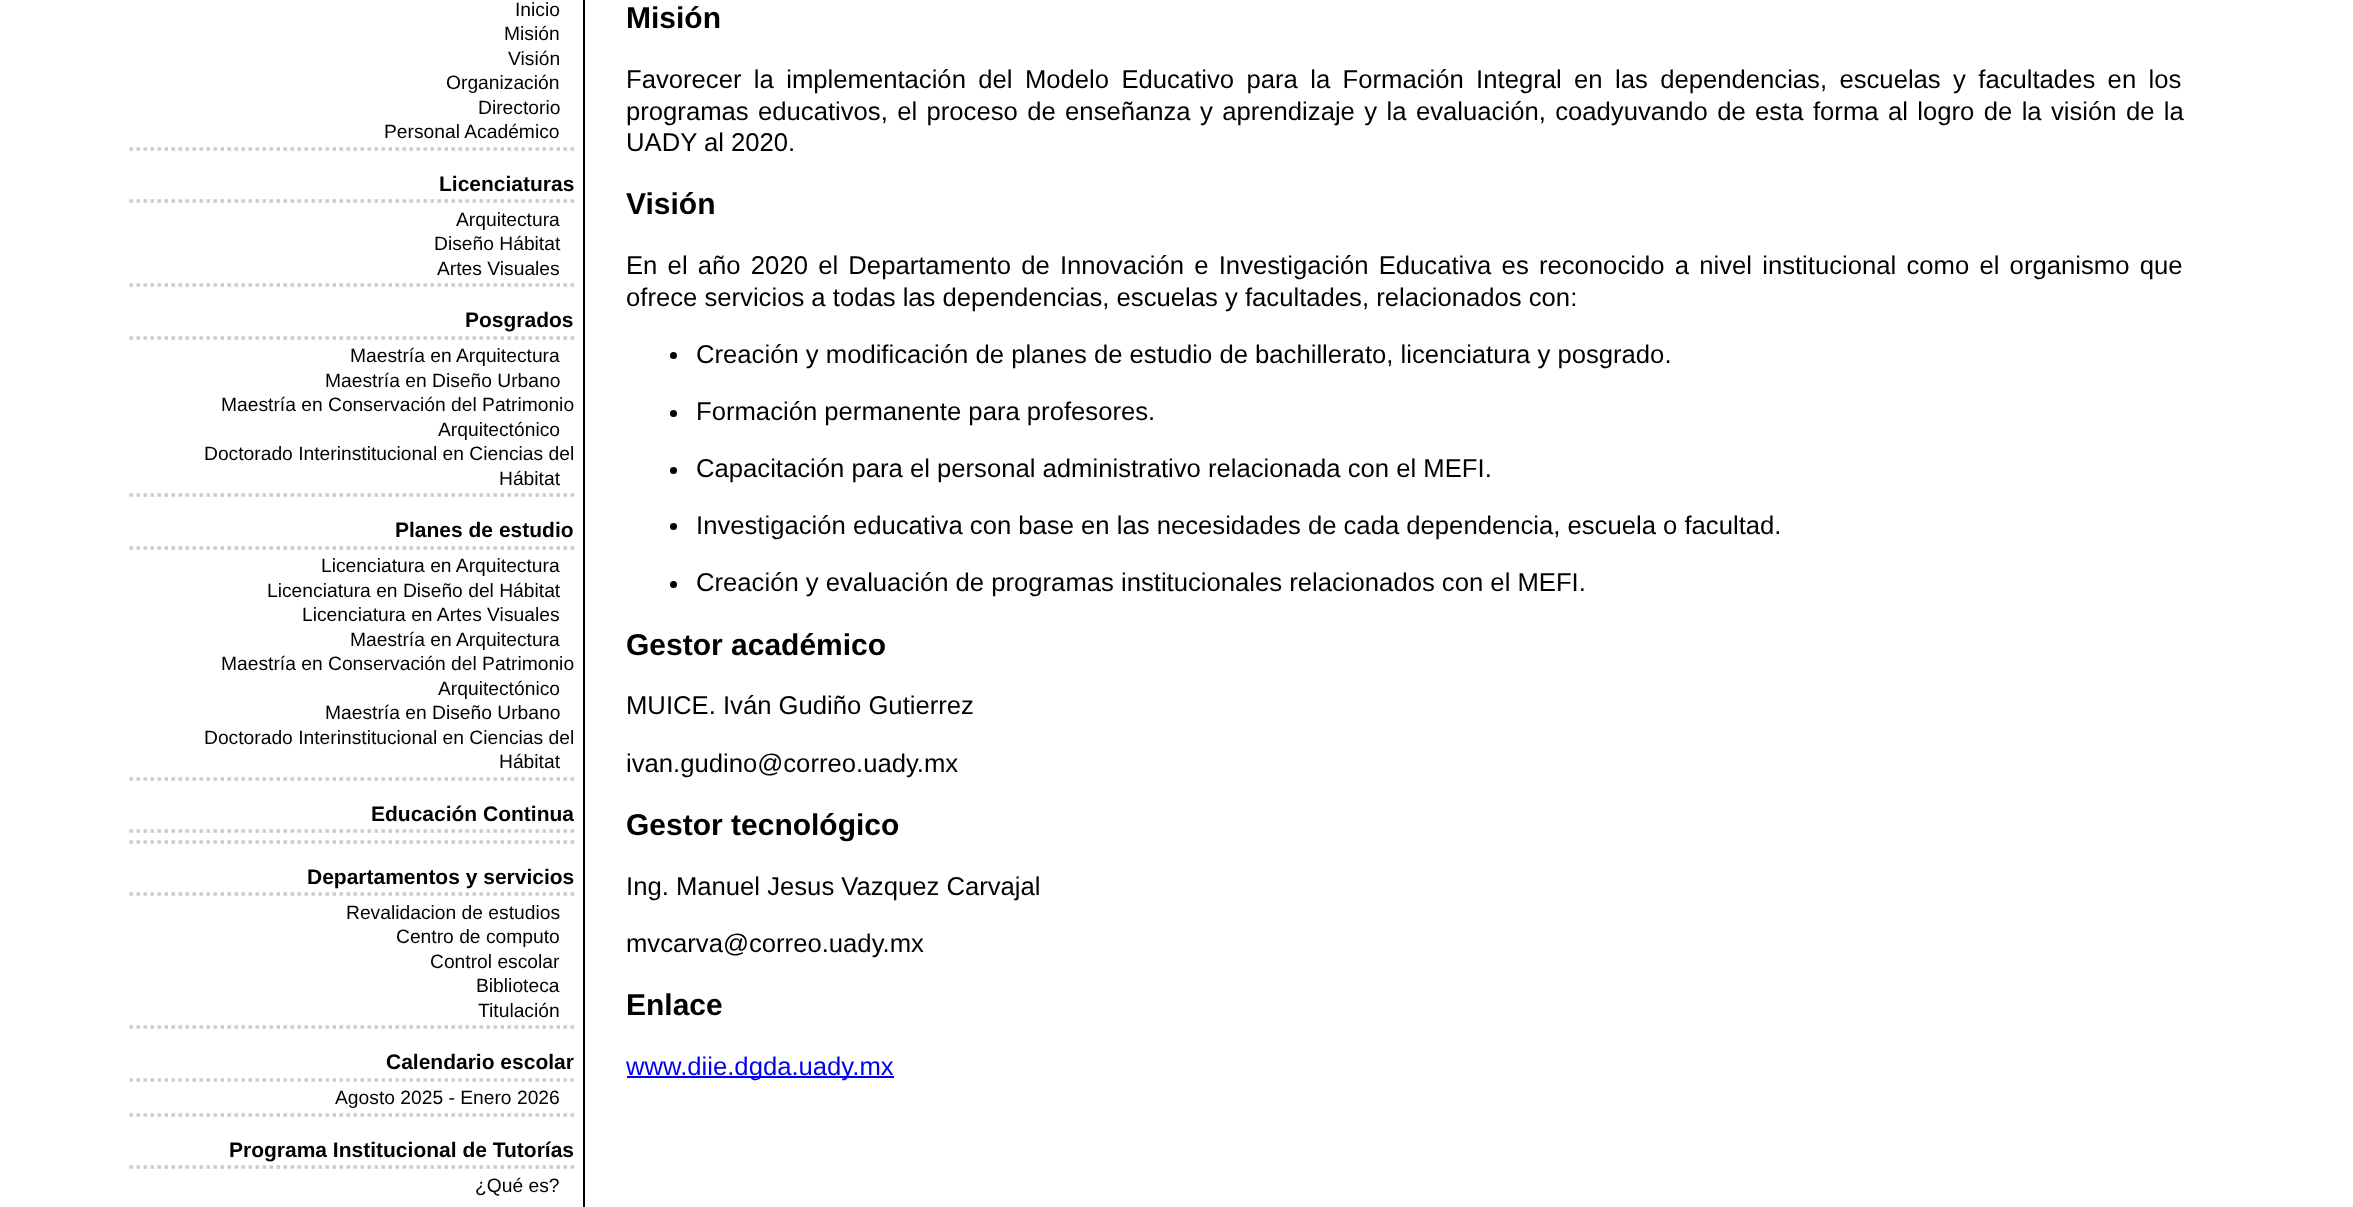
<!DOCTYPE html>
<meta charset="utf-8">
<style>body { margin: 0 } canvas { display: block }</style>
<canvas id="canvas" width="2353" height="1207"></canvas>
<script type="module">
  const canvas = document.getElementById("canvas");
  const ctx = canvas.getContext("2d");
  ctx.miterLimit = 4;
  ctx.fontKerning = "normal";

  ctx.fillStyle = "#ffffff";
  ctx.fillRect(0, 0, 2353, 1207);
  ctx.fillStyle = "#000000";
  ctx.fillRect(583, 0, 2, 1207);
  ctx.beginPath();
  ctx.moveTo(129.5, 149);
  ctx.lineTo(574, 149);
  ctx.strokeStyle = "#cccccc";
  ctx.lineWidth = 3.5;
  ctx.setLineDash([3.5, 3.5]);
  ctx.stroke();
  ctx.font = "19.25px Liberation Sans";
  ctx.fillText("Inicio", 515, 16);
  ctx.fillText("Misión", 504, 40);
  ctx.fillText("Visión", 508, 65);
  ctx.fillText("Organización", 446, 89);
  ctx.fillText("Directorio", 478, 114);
  ctx.fillText("Personal Académico", 384, 138);
  ctx.beginPath();
  ctx.moveTo(129.5, 201);
  ctx.lineTo(574, 201);
  ctx.stroke();
  ctx.font = "bold 21px Liberation Sans";
  ctx.fillText("Licenciaturas", 439, 191);
  ctx.beginPath();
  ctx.moveTo(129.5, 285);
  ctx.lineTo(574, 285);
  ctx.stroke();
  ctx.font = "19.25px Liberation Sans";
  ctx.fillText("Arquitectura", 456, 226);
  ctx.fillText("Diseño Hábitat", 434, 250);
  ctx.fillText("Artes Visuales", 437, 275);
  ctx.beginPath();
  ctx.moveTo(129.5, 338);
  ctx.lineTo(574, 338);
  ctx.stroke();
  ctx.font = "bold 21px Liberation Sans";
  ctx.fillText("Posgrados", 465, 327);
  ctx.beginPath();
  ctx.moveTo(129.5, 495);
  ctx.lineTo(574, 495);
  ctx.stroke();
  ctx.font = "19.25px Liberation Sans";
  ctx.fillText("Maestría en Arquitectura", 350, 362);
  ctx.fillText("Maestría en Diseño Urbano", 325, 387);
  ctx.fillText("Maestría en Conservación del Patrimonio", 221, 411);
  ctx.fillText("Arquitectónico", 438, 436);
  ctx.fillText("Doctorado Interinstitucional en Ciencias del", 204, 460);
  ctx.fillText("Hábitat", 499, 485);
  ctx.beginPath();
  ctx.moveTo(129.5, 548);
  ctx.lineTo(574, 548);
  ctx.stroke();
  ctx.font = "bold 21px Liberation Sans";
  ctx.fillText("Planes de estudio", 395, 537);
  ctx.beginPath();
  ctx.moveTo(129.5, 779);
  ctx.lineTo(574, 779);
  ctx.stroke();
  ctx.font = "19.25px Liberation Sans";
  ctx.fillText("Licenciatura en Arquitectura", 321, 572);
  ctx.fillText("Licenciatura en Diseño del Hábitat", 267, 597);
  ctx.fillText("Licenciatura en Artes Visuales", 302, 621);
  ctx.fillText("Maestría en Arquitectura", 350, 646);
  ctx.fillText("Maestría en Conservación del Patrimonio", 221, 670);
  ctx.fillText("Arquitectónico", 438, 695);
  ctx.fillText("Maestría en Diseño Urbano", 325, 719);
  ctx.fillText("Doctorado Interinstitucional en Ciencias del", 204, 744);
  ctx.fillText("Hábitat", 499, 768);
  ctx.beginPath();
  ctx.moveTo(129.5, 831);
  ctx.lineTo(574, 831);
  ctx.stroke();
  ctx.font = "bold 21px Liberation Sans";
  ctx.fillText("Educación Continua", 371, 821);
  ctx.beginPath();
  ctx.moveTo(129.5, 842);
  ctx.lineTo(574, 842);
  ctx.stroke();
  ctx.beginPath();
  ctx.moveTo(129.5, 894);
  ctx.lineTo(574, 894);
  ctx.stroke();
  ctx.fillText("Departamentos y servicios", 307, 884);
  ctx.beginPath();
  ctx.moveTo(129.5, 1027);
  ctx.lineTo(574, 1027);
  ctx.stroke();
  ctx.font = "19.25px Liberation Sans";
  ctx.fillText("Revalidacion de estudios", 346, 919);
  ctx.fillText("Centro de computo", 396, 943);
  ctx.fillText("Control escolar", 430, 968);
  ctx.fillText("Biblioteca", 476, 992);
  ctx.fillText("Titulación", 478, 1017);
  ctx.beginPath();
  ctx.moveTo(129.5, 1080);
  ctx.lineTo(574, 1080);
  ctx.stroke();
  ctx.font = "bold 21px Liberation Sans";
  ctx.fillText("Calendario escolar", 386, 1069);
  ctx.beginPath();
  ctx.moveTo(129.5, 1115);
  ctx.lineTo(574, 1115);
  ctx.stroke();
  ctx.font = "19.25px Liberation Sans";
  ctx.fillText("Agosto 2025 - Enero 2026", 335, 1104);
  ctx.beginPath();
  ctx.moveTo(129.5, 1167);
  ctx.lineTo(574, 1167);
  ctx.stroke();
  ctx.font = "bold 21px Liberation Sans";
  ctx.fillText("Programa Institucional de Tutorías", 229, 1157);
  ctx.font = "19.25px Liberation Sans";
  ctx.fillText("¿Qué es?", 475, 1192);
  ctx.font = "bold 30px Liberation Sans";
  ctx.fillText("Misión", 626, 28);
  ctx.wordSpacing = "5.25px";
  ctx.font = "25.67px Liberation Sans";
  ctx.fillText("Favorecer la implementación del Modelo Educativo para la Formación Integral en las dependencias, escuelas y facultades en los", 626, 88);
  ctx.wordSpacing = "2.25px";
  ctx.fillText("programas educativos, el proceso de enseñanza y aprendizaje y la", 626, 120);
  ctx.fillText("evaluación, coadyuvando de esta forma al logro de la visión de la", 1416, 120);
  ctx.wordSpacing = "0px";
  ctx.fillText("UADY al 2020.", 626, 151);
  ctx.font = "bold 30px Liberation Sans";
  ctx.fillText("Visión", 626, 214);
  ctx.wordSpacing = "3.1px";
  ctx.font = "25.67px Liberation Sans";
  ctx.fillText("En el año 2020 el Departamento de Innovación e Investigación Educativa es reconocido a nivel institucional como el organismo que", 626, 274);
  ctx.wordSpacing = "0px";
  ctx.fillText("ofrece servicios a todas las dependencias, escuelas y facultades, relacionados con:", 626, 306);
  ctx.beginPath();
  ctx.arc(673.5, 355.5, 3.5, 0, Math.PI * 2);
  ctx.fill();
  ctx.fillText("Creación y modificación de planes de estudio de bachillerato, licenciatura y posgrado.", 696, 363);
  ctx.beginPath();
  ctx.arc(673.5, 413.5, 3.5, 0, Math.PI * 2);
  ctx.fill();
  ctx.fillText("Formación permanente para profesores.", 696, 420);
  ctx.beginPath();
  ctx.arc(673.5, 470.5, 3.5, 0, Math.PI * 2);
  ctx.fill();
  ctx.fillText("Capacitación para el personal administrativo relacionada con el MEFI.", 696, 477);
  ctx.beginPath();
  ctx.arc(673.5, 526.5, 3.5, 0, Math.PI * 2);
  ctx.fill();
  ctx.fillText("Investigación educativa con base en las necesidades de cada dependencia, escuela o facultad.", 696, 534);
  ctx.beginPath();
  ctx.arc(673.5, 584.5, 3.5, 0, Math.PI * 2);
  ctx.fill();
  ctx.fillText("Creación y evaluación de programas institucionales relacionados con el MEFI.", 696, 591);
  ctx.font = "bold 30px Liberation Sans";
  ctx.fillText("Gestor académico", 626, 655);
  ctx.font = "25.67px Liberation Sans";
  ctx.fillText("MUICE. Iván Gudiño Gutierrez", 626, 714);
  ctx.fillText("ivan.gudino@correo.uady.mx", 626, 772);
  ctx.font = "bold 30px Liberation Sans";
  ctx.fillText("Gestor tecnológico", 626, 835);
  ctx.font = "25.67px Liberation Sans";
  ctx.fillText("Ing. Manuel Jesus Vazquez Carvajal", 626, 895);
  ctx.fillText("mvcarva@correo.uady.mx", 626, 952);
  ctx.font = "bold 30px Liberation Sans";
  ctx.fillText("Enlace", 626, 1015);
  ctx.fillStyle = "#0000ee";
  ctx.fillRect(627, 1076, 267, 2);
  ctx.font = "25.67px Liberation Sans";
  ctx.fillText("www.diie.dgda.uady.mx", 626, 1075);
</script>
